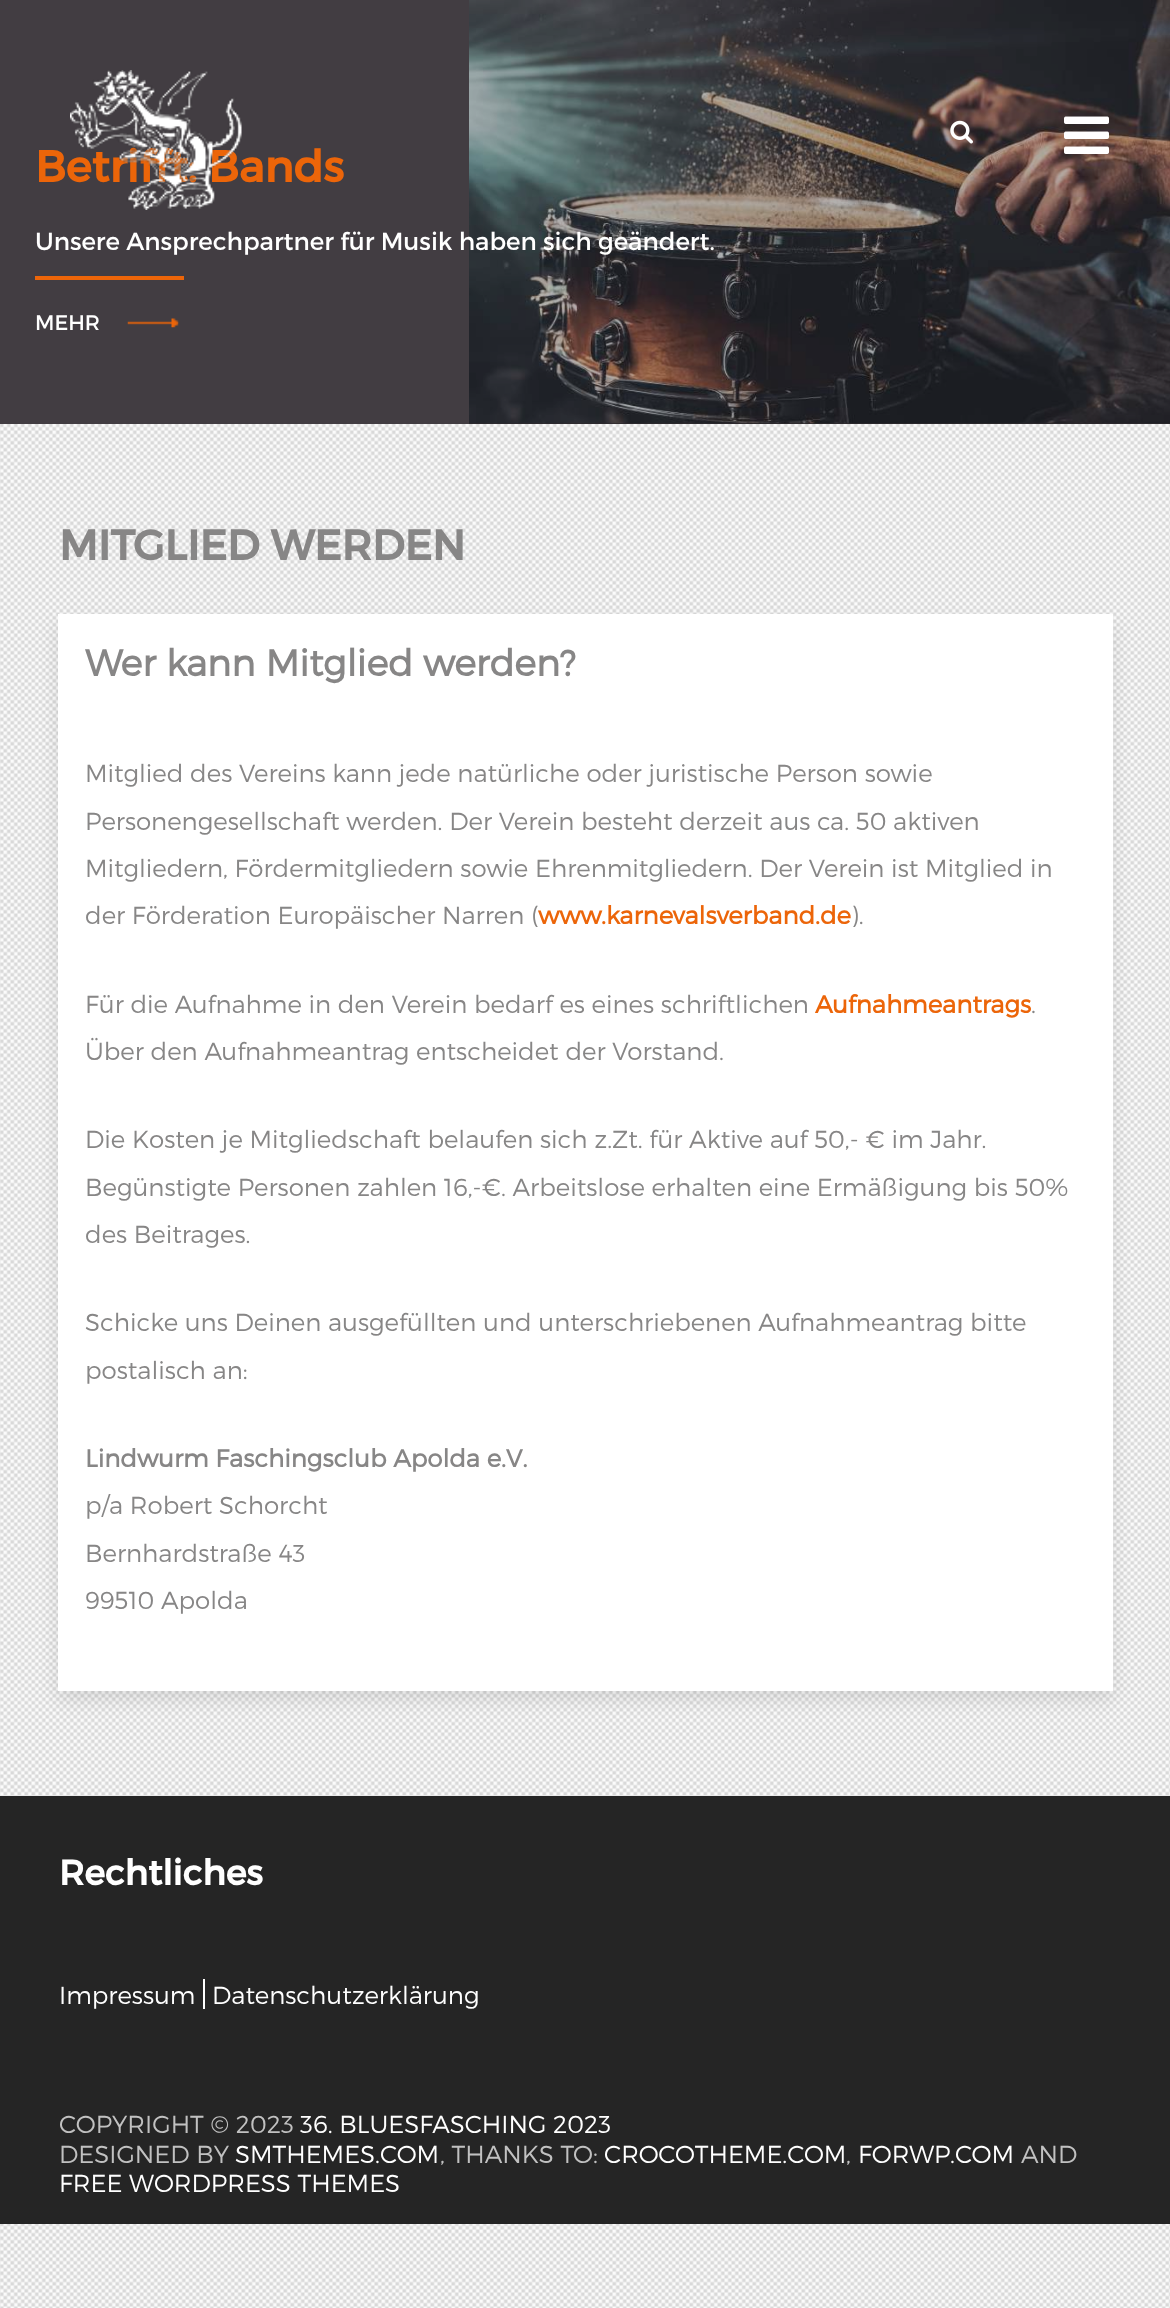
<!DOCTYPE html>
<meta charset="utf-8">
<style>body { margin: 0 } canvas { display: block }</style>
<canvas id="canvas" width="1170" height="2308"></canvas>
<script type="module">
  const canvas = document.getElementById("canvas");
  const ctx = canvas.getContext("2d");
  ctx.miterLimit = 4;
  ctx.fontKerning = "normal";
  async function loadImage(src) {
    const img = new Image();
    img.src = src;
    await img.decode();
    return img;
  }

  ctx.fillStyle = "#ffffff";
  ctx.fillRect(0, 0, 1170, 2308);
  ctx.drawImage(await loadImage("img1.png"), 0, 424, 1170, 1884);
  ctx.fillStyle = "#423d42";
  ctx.fillRect(0, 0, 1170, 424);
  ctx.font = "bold 43.75px Montserrat";
  ctx.fillStyle = "#ec6509";
  ctx.fillText("Betrifft: Bands", 35, 182);
  ctx.drawImage(await loadImage("img2.png"), 70, 70, 172, 140);
  ctx.drawImage(await loadImage("img5.png"), 469, 0, 701, 424);
  ctx.fillStyle = "rgba(0, 0, 0, 0.3)";
  ctx.fillRect(469, 0, 701, 424);
  ctx.drawImage(await loadImage("img3.png"), 950, 120, 23, 24);
  ctx.drawImage(await loadImage("img4.png"), 1064, 116, 45, 38);
  ctx.fillStyle = "#ec6509";
  ctx.fillRect(35, 276, 149, 4);
  ctx.font = "24.5px Montserrat";
  ctx.fillStyle = "#ffffff";
  ctx.fillText("Unsere Ansprechpartner für Musik haben sich geändert.", 35, 250);
  ctx.drawImage(await loadImage("img6.png"), 127, 318, 52, 10);
  ctx.font = "21px Montserrat";
  ctx.fillText("MEHR", 35, 330);
  ctx.font = "bold 42px Montserrat";
  ctx.fillStyle = "#878686";
  ctx.fillText("MITGLIED WERDEN", 59, 560);
  ctx.fillStyle = "rgba(0, 0, 0, 0.1)";
  ctx.filter = "blur(9px)";
  ctx.beginPath();
  ctx.rect(58, 623, 1055, 1076);
  ctx.fill();
  ctx.filter = "none";
  ctx.fillStyle = "#ffffff";
  ctx.fillRect(58, 614, 1055, 1077);
  ctx.font = "bold 36.75px 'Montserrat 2'";
  ctx.fillStyle = "#878686";
  ctx.fillText("Wer kann Mitglied werden?", 85, 676);
  ctx.font = "300 24.5px Montserrat";
  ctx.fillText("Mitglied des Vereins kann jede natürliche oder juristische Person sowie", 85, 782);
  ctx.fillText("Personengesellschaft werden. Der Verein besteht derzeit aus ca. 50 aktiven", 85, 830);
  ctx.fillText("Mitgliedern, Fördermitgliedern sowie Ehrenmitgliedern. Der Verein ist Mitglied in", 85, 877);
  ctx.fillText("der Förderation Europäischer Narren (", 85, 924);
  ctx.font = "bold 24.5px 'Montserrat 2'";
  ctx.fillStyle = "#ec6509";
  ctx.fillText("www.karnevalsverband.de", 538, 924);
  ctx.font = "300 24.5px Montserrat";
  ctx.fillStyle = "#878686";
  ctx.fillText(").", 851, 924);
  ctx.fillText("Für die Aufnahme in den Verein bedarf es eines schriftlichen", 85, 1013);
  ctx.font = "bold 24.5px 'Montserrat 2'";
  ctx.fillStyle = "#ec6509";
  ctx.fillText("Aufnahmeantrags", 815, 1013);
  ctx.font = "300 24.5px Montserrat";
  ctx.fillStyle = "#878686";
  ctx.fillText(".", 1031, 1013);
  ctx.fillText("Über den Aufnahmeantrag entscheidet der Vorstand.", 85, 1060);
  ctx.fillText("Die Kosten je Mitgliedschaft belaufen sich z.Zt. für Aktive auf 50,- € im Jahr.", 85, 1148);
  ctx.fillText("Begünstigte Personen zahlen 16,-€. Arbeitslose erhalten eine Ermäßigung bis 50%", 85, 1196);
  ctx.fillText("des Beitrages.", 85, 1243);
  ctx.fillText("Schicke uns Deinen ausgefüllten und unterschriebenen Aufnahmeantrag bitte", 85, 1331);
  ctx.fillText("postalisch an:", 85, 1379);
  ctx.font = "bold 24.5px 'Montserrat 2'";
  ctx.fillText("Lindwurm Faschingsclub Apolda e.V.", 85, 1467);
  ctx.font = "300 24.5px Montserrat";
  ctx.fillText("p/a Robert Schorcht", 85, 1514);
  ctx.fillText("Bernhardstraße 43", 85, 1562);
  ctx.fillText("99510 Apolda", 85, 1609);
  ctx.fillStyle = "#252525";
  ctx.fillRect(0, 1796, 1170, 428);
  ctx.font = "bold 35px Montserrat";
  ctx.fillStyle = "#ffffff";
  ctx.fillText("Rechtliches", 59, 1885);
  ctx.fillRect(203, 1979, 2, 30);
  ctx.font = "300 24.5px Montserrat";
  ctx.fillText("Impressum", 59, 2004);
  ctx.fillText("Datenschutzerklärung", 212, 2004);
  ctx.fillStyle = "#c1c1c1";
  ctx.fillText("COPYRIGHT © 2023", 59, 2133);
  ctx.fillStyle = "#ffffff";
  ctx.fillText("36. BLUESFASCHING 2023", 300, 2133);
  ctx.fillStyle = "#c1c1c1";
  ctx.fillText("DESIGNED BY", 59, 2163);
  ctx.fillStyle = "#ffffff";
  ctx.fillText("SMTHEMES.COM", 235, 2163);
  ctx.fillStyle = "#c1c1c1";
  ctx.fillText(", THANKS TO:", 440, 2163);
  ctx.fillStyle = "#ffffff";
  ctx.fillText("CROCOTHEME.COM", 604, 2163);
  ctx.fillStyle = "#c1c1c1";
  ctx.fillText(",", 846, 2163);
  ctx.fillStyle = "#ffffff";
  ctx.fillText("FORWP.COM", 858, 2163);
  ctx.fillStyle = "#c1c1c1";
  ctx.fillText("AND", 1021, 2163);
  ctx.fillStyle = "#ffffff";
  ctx.fillText("FREE WORDPRESS THEMES", 59, 2192);
</script>
